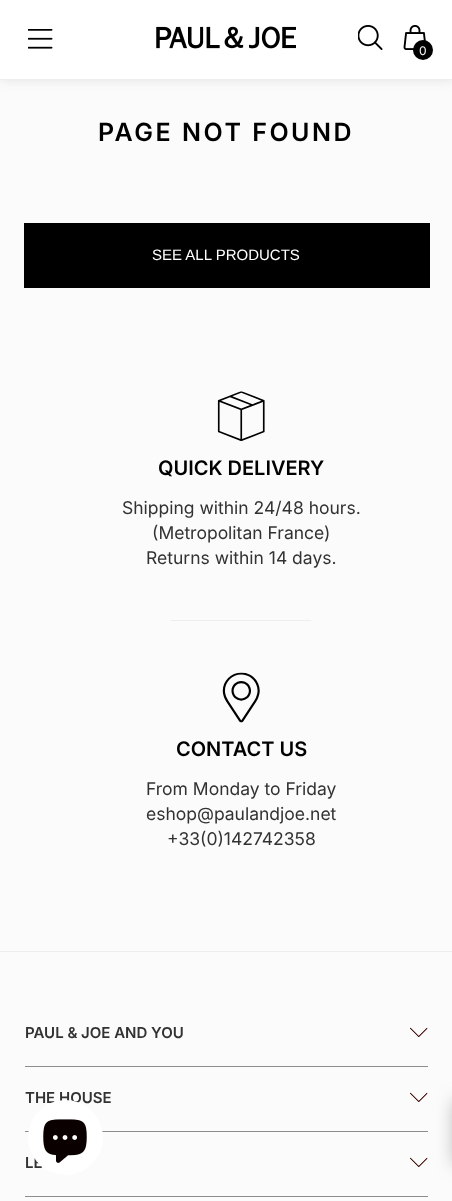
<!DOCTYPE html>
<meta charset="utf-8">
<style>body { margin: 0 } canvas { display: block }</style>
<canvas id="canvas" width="452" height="1201"></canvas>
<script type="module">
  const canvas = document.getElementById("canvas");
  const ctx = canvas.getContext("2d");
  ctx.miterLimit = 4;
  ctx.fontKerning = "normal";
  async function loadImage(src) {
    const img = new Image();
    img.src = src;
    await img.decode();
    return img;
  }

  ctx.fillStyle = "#fbfbfb";
  ctx.fillRect(0, 0, 452, 1201);
  ctx.fillStyle = "rgba(0, 0, 0, 0.1)";
  ctx.filter = "blur(6px)";
  ctx.beginPath();
  ctx.rect(1, 0, 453, 80);
  ctx.fill();
  ctx.filter = "none";
  ctx.fillStyle = "#ffffff";
  ctx.fillRect(0, 0, 452, 79);
  ctx.fillStyle = "#efeeef";
  ctx.fillRect(0, 79, 452, 1);
  ctx.drawImage(await loadImage("img1.png"), 28, 29, 25, 20);
  ctx.drawImage(await loadImage("img2.png"), 156, 26, 140, 23);
  ctx.drawImage(await loadImage("img3.png"), 358, 25, 25, 25);
  ctx.drawImage(await loadImage("img4.png"), 403, 25, 23, 25);
  ctx.fillStyle = "#000000";
  ctx.beginPath();
  ctx.arc(423, 50, 10, 0, Math.PI * 2);
  ctx.fill();
  ctx.font = "12px Inter";
  ctx.fillStyle = "#ffffff";
  ctx.fillText("0", 419, 55);
  ctx.letterSpacing = "2.5px";
  ctx.font = "600 25px Inter";
  ctx.fillStyle = "#000000";
  ctx.fillText("PAGE NOT FOUND", 98, 141);
  ctx.fillRect(24, 223, 406, 65);
  ctx.letterSpacing = "0px";
  ctx.font = "15px Liberation Sans";
  ctx.fillStyle = "#ffffff";
  ctx.fillText("SEE ALL PRODUCTS", 152, 260);
  ctx.drawImage(await loadImage("img5.png"), 217, 391, 48, 50);
  ctx.font = "600 20px Inter";
  ctx.fillStyle = "#000000";
  ctx.fillText("QUICK DELIVERY", 158, 475);
  ctx.font = "17.5px Inter";
  ctx.fillStyle = "#323232";
  ctx.fillText("Shipping within 24/48 hours.", 122, 514);
  ctx.fillText("(Metropolitan France)", 152, 539);
  ctx.fillText("Returns within 14 days.", 146, 564);
  ctx.fillStyle = "#efeeef";
  ctx.fillRect(171, 620, 140, 1);
  ctx.drawImage(await loadImage("img6.png"), 222, 672, 38, 51);
  ctx.font = "600 20px Inter";
  ctx.fillStyle = "#000000";
  ctx.fillText("CONTACT US", 176, 756);
  ctx.font = "17.5px Inter";
  ctx.fillStyle = "#323232";
  ctx.fillText("From Monday to Friday", 146, 795);
  ctx.fillText("eshop@paulandjoe.net", 146, 820);
  ctx.fillText("+33(0)142742358", 167, 845);
  ctx.fillStyle = "#efeeef";
  ctx.fillRect(0, 951, 452, 1);
  ctx.fillStyle = "#8d8d8d";
  ctx.fillRect(25, 1066, 403, 1);
  ctx.font = "600 15px Inter";
  ctx.fillStyle = "#323232";
  ctx.fillText("PAUL & JOE AND YOU", 25, 1038);
  ctx.drawImage(await loadImage("img7.png"), 410, 1027, 18, 10);
  ctx.fillStyle = "#8d8d8d";
  ctx.fillRect(25, 1131, 403, 1);
  ctx.fillStyle = "#323232";
  ctx.fillText("THE HOUSE", 25, 1103);
  ctx.drawImage(await loadImage("img7.png"), 410, 1092, 18, 10);
  ctx.fillStyle = "#8d8d8d";
  ctx.fillRect(25, 1196, 403, 1);
  ctx.fillStyle = "#323232";
  ctx.fillText("LE", 25, 1168);
  ctx.drawImage(await loadImage("img7.png"), 410, 1157, 18, 10);
  ctx.fillStyle = "rgba(117, 117, 117, 0.5)";
  ctx.filter = "blur(9px)";
  ctx.beginPath();
  ctx.rect(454, 1101, 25, 63);
  ctx.fill();
  ctx.filter = "none";
  ctx.fillStyle = "#ffffff";
  ctx.beginPath();
  ctx.arc(65.5, 1137.5, 37.5, 0, Math.PI * 2);
  ctx.fill();
  ctx.drawImage(await loadImage("img8.png"), 43, 1119, 44, 44);
</script>
